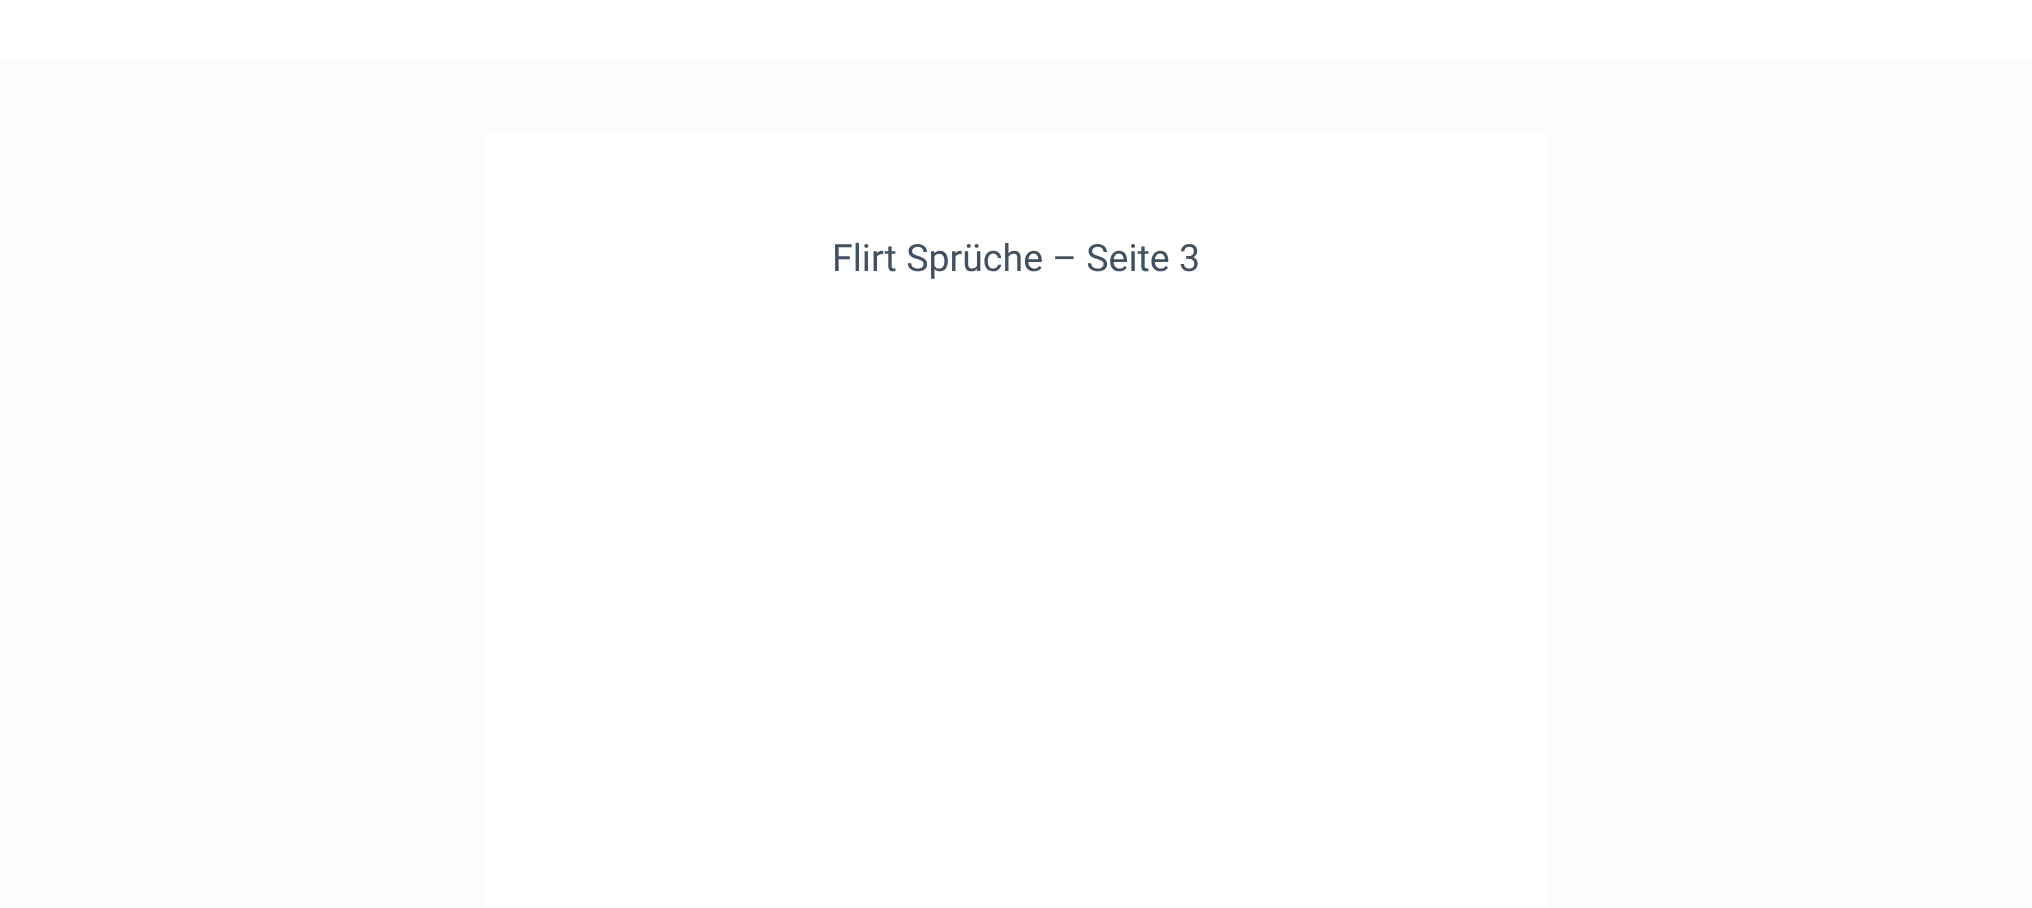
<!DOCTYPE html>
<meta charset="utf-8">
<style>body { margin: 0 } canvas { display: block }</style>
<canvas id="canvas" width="2032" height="908"></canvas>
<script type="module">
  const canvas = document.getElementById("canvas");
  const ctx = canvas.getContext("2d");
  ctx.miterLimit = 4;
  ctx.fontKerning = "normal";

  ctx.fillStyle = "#fbfcfd";
  ctx.fillRect(0, 0, 2032, 908);
  ctx.fillStyle = "#ffffff";
  ctx.fillRect(0, 0, 2032, 58);
  ctx.fillRect(485, 133, 1063, 775);
  ctx.font = "37.5px Roboto";
  ctx.fillStyle = "#415161";
  ctx.fillText("Flirt Sprüche – Seite 3", 832, 271);
</script>
